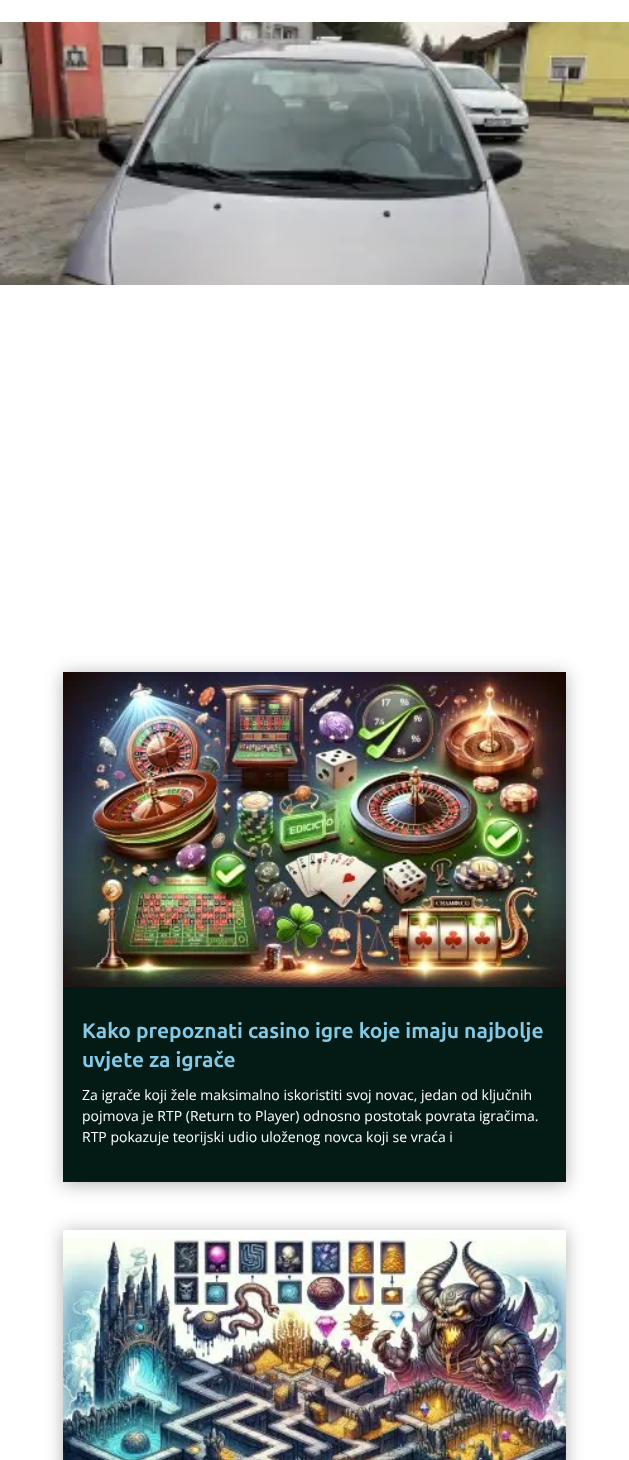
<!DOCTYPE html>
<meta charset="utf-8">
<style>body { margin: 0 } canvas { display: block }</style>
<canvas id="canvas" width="629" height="1460"></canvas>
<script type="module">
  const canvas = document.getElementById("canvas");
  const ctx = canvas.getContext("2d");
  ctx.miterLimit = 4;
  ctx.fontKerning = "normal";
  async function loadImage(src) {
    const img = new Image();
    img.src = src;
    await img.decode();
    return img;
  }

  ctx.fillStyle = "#ffffff";
  ctx.fillRect(0, 0, 629, 1460);
  ctx.drawImage(await loadImage("img1.png"), 0, 22, 629, 263);
  ctx.fillStyle = "rgba(0, 0, 0, 0.3)";
  ctx.filter = "blur(9px)";
  ctx.beginPath();
  ctx.rect(63, 674, 503, 510);
  ctx.fill();
  ctx.filter = "none";
  ctx.fillStyle = "#041b15";
  ctx.fillRect(63, 987, 503, 195);
  ctx.drawImage(await loadImage("img2.png"), 63, 672, 503, 315);
  ctx.font = "bold 21px Ubuntu";
  ctx.fillStyle = "#84cae7";
  ctx.fillText("Kako prepoznati casino igre koje imaju najbolje", 82, 1038);
  ctx.fillText("uvjete za igrače", 82, 1067);
  ctx.font = "14px Open Sans";
  ctx.fillStyle = "#ffffff";
  ctx.fillText("Za igrače koji žele maksimalno iskoristiti svoj novac, jedan od ključnih", 82, 1100);
  ctx.fillText("pojmova je RTP (Return to Player) odnosno postotak povrata igračima.", 82, 1121);
  ctx.fillText("RTP pokazuje teorijski udio uloženog novca koji se vraća i", 82, 1142);
  ctx.fillStyle = "rgba(0, 0, 0, 0.3)";
  ctx.filter = "blur(9px)";
  ctx.beginPath();
  ctx.rect(63, 1232, 503, 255);
  ctx.fill();
  ctx.filter = "none";
  ctx.drawImage(await loadImage("img3.png"), 63, 1230, 503, 230);
</script>
